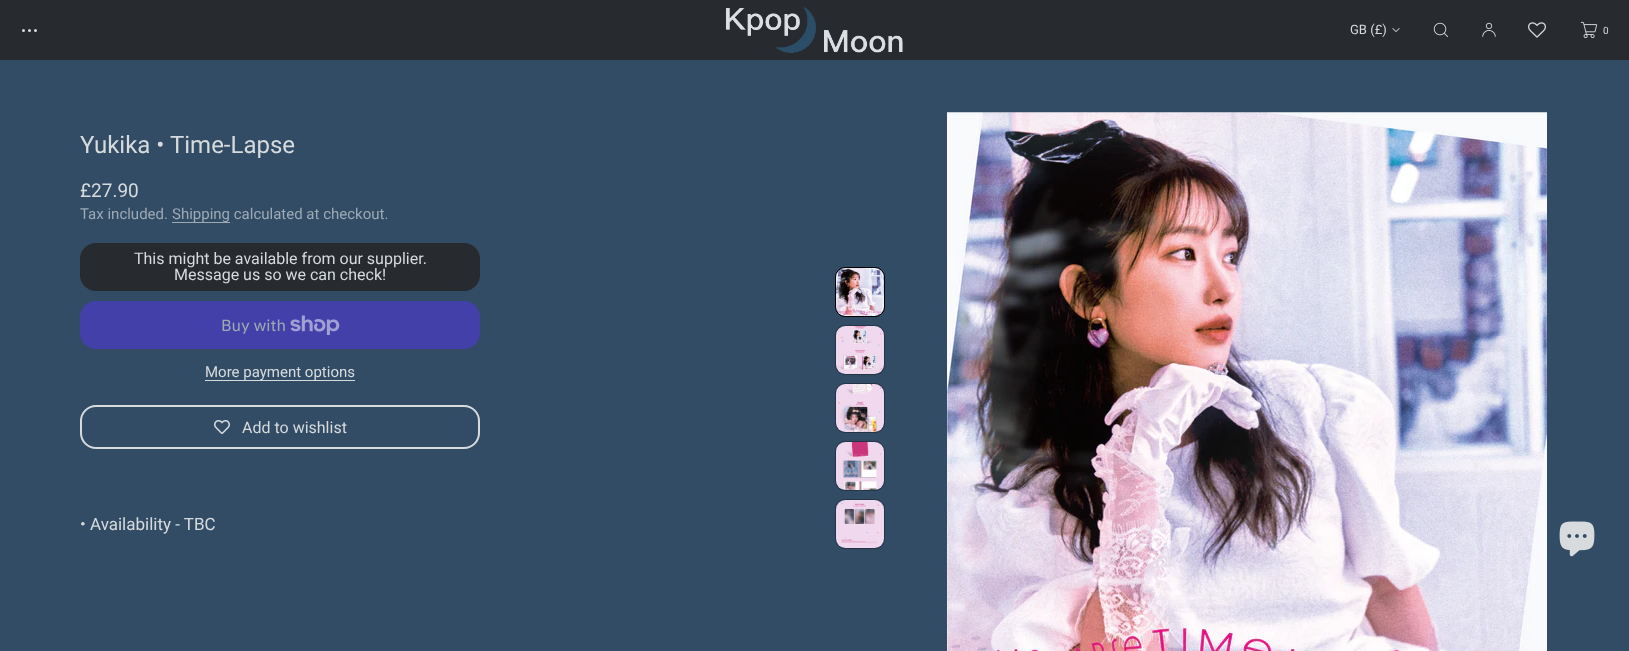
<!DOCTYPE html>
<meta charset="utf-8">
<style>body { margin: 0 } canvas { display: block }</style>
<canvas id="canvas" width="1629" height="651"></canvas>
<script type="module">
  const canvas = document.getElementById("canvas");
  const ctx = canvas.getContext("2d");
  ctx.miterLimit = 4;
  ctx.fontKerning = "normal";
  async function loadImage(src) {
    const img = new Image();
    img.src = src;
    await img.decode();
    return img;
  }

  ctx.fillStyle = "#324c66";
  ctx.fillRect(0, 0, 1629, 651);
  ctx.fillStyle = "#272a2e";
  ctx.fillRect(0, 0, 1629, 60);
  ctx.fillStyle = "#d7dbdd";
  ctx.beginPath();
  ctx.arc(23.5, 30.5, 1.5, 0, Math.PI * 2);
  ctx.fill();
  ctx.beginPath();
  ctx.arc(29.5, 30.5, 1.5, 0, Math.PI * 2);
  ctx.fill();
  ctx.beginPath();
  ctx.arc(35.5, 30.5, 1.5, 0, Math.PI * 2);
  ctx.fill();
  ctx.drawImage(await loadImage("img1.png"), 725, 7, 178, 46);
  ctx.font = "13px Roboto";
  ctx.fillText("GB (£)", 1350, 34);
  ctx.drawImage(await loadImage("img2.png"), 1392, 28, 8, 4);
  ctx.drawImage(await loadImage("img3.png"), 1433, 22, 16, 16);
  ctx.drawImage(await loadImage("img4.png"), 1482, 22, 14, 15);
  ctx.drawImage(await loadImage("img5.png"), 1528, 22, 18, 16);
  ctx.drawImage(await loadImage("img6.png"), 1580, 21, 18, 18);
  ctx.font = "10px Roboto";
  ctx.fillText("0", 1603, 34);
  ctx.font = "24px Roboto";
  ctx.fillText("Yukika • Time-Lapse", 80, 153);
  ctx.font = "19px Roboto";
  ctx.fillText("£27.90", 80, 197);
  ctx.font = "15px Roboto";
  ctx.fillStyle = "#9da9b3";
  ctx.fillText("Tax included.", 80, 219);
  ctx.fillRect(172, 222, 58, 1);
  ctx.fillText("Shipping calculated at checkout.", 172, 219);
  ctx.fillStyle = "#272a2e";
  ctx.beginPath();
  ctx.roundRect(80, 243, 400, 48, 16);
  ctx.fill();
  ctx.font = "16px Roboto";
  ctx.fillStyle = "#d7dbdd";
  ctx.fillText("This might be available from our supplier.", 134, 264);
  ctx.fillText("Message us so we can check!", 174, 280);
  ctx.fillStyle = "#4340a9";
  ctx.beginPath();
  ctx.roundRect(80, 301, 400, 48, 16);
  ctx.fill();
  ctx.font = "16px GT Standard";
  ctx.fillStyle = "#9da9b3";
  ctx.fillText("Buy with", 221, 331);
  ctx.drawImage(await loadImage("img7.png"), 290, 315, 50, 20);
  ctx.fillStyle = "#d7dbdd";
  ctx.fillRect(205, 380, 150, 1);
  ctx.font = "15px Roboto";
  ctx.fillText("More payment options", 205, 377);
  ctx.beginPath();
  ctx.roundRect(81, 406, 398, 42, 15);
  ctx.strokeStyle = "#d7dbdd";
  ctx.lineWidth = 2;
  ctx.stroke();
  ctx.drawImage(await loadImage("img8.png"), 214, 420, 16, 14);
  ctx.font = "16px Roboto";
  ctx.fillText("Add to wishlist", 242, 433);
  ctx.font = "17px Roboto";
  ctx.fillText("• Availability - TBC", 80, 530);
  ctx.beginPath();
  ctx.roundRect(835.5, 267.5, 49, 49, 9.5);
  ctx.strokeStyle = "#000000";
  ctx.lineWidth = 1;
  ctx.stroke();
  ctx.drawImage(await loadImage("img9.png"), 836, 268, 48, 48);
  ctx.beginPath();
  ctx.roundRect(835.5, 325.5, 49, 49, 9.5);
  ctx.strokeStyle = "#233547";
  ctx.stroke();
  ctx.drawImage(await loadImage("img10.png"), 836, 326, 48, 48);
  ctx.beginPath();
  ctx.roundRect(835.5, 383.5, 49, 49, 9.5);
  ctx.stroke();
  ctx.drawImage(await loadImage("img11.png"), 836, 384, 48, 48);
  ctx.beginPath();
  ctx.roundRect(835.5, 441.5, 49, 49, 9.5);
  ctx.stroke();
  ctx.drawImage(await loadImage("img12.png"), 836, 442, 48, 48);
  ctx.beginPath();
  ctx.roundRect(835.5, 499.5, 49, 49, 9.5);
  ctx.stroke();
  ctx.drawImage(await loadImage("img13.png"), 836, 500, 48, 48);
  ctx.drawImage(await loadImage("img14.png"), 947, 112, 600, 539);
  ctx.drawImage(await loadImage("img15.png"), 1559, 521, 36, 36);
</script>
